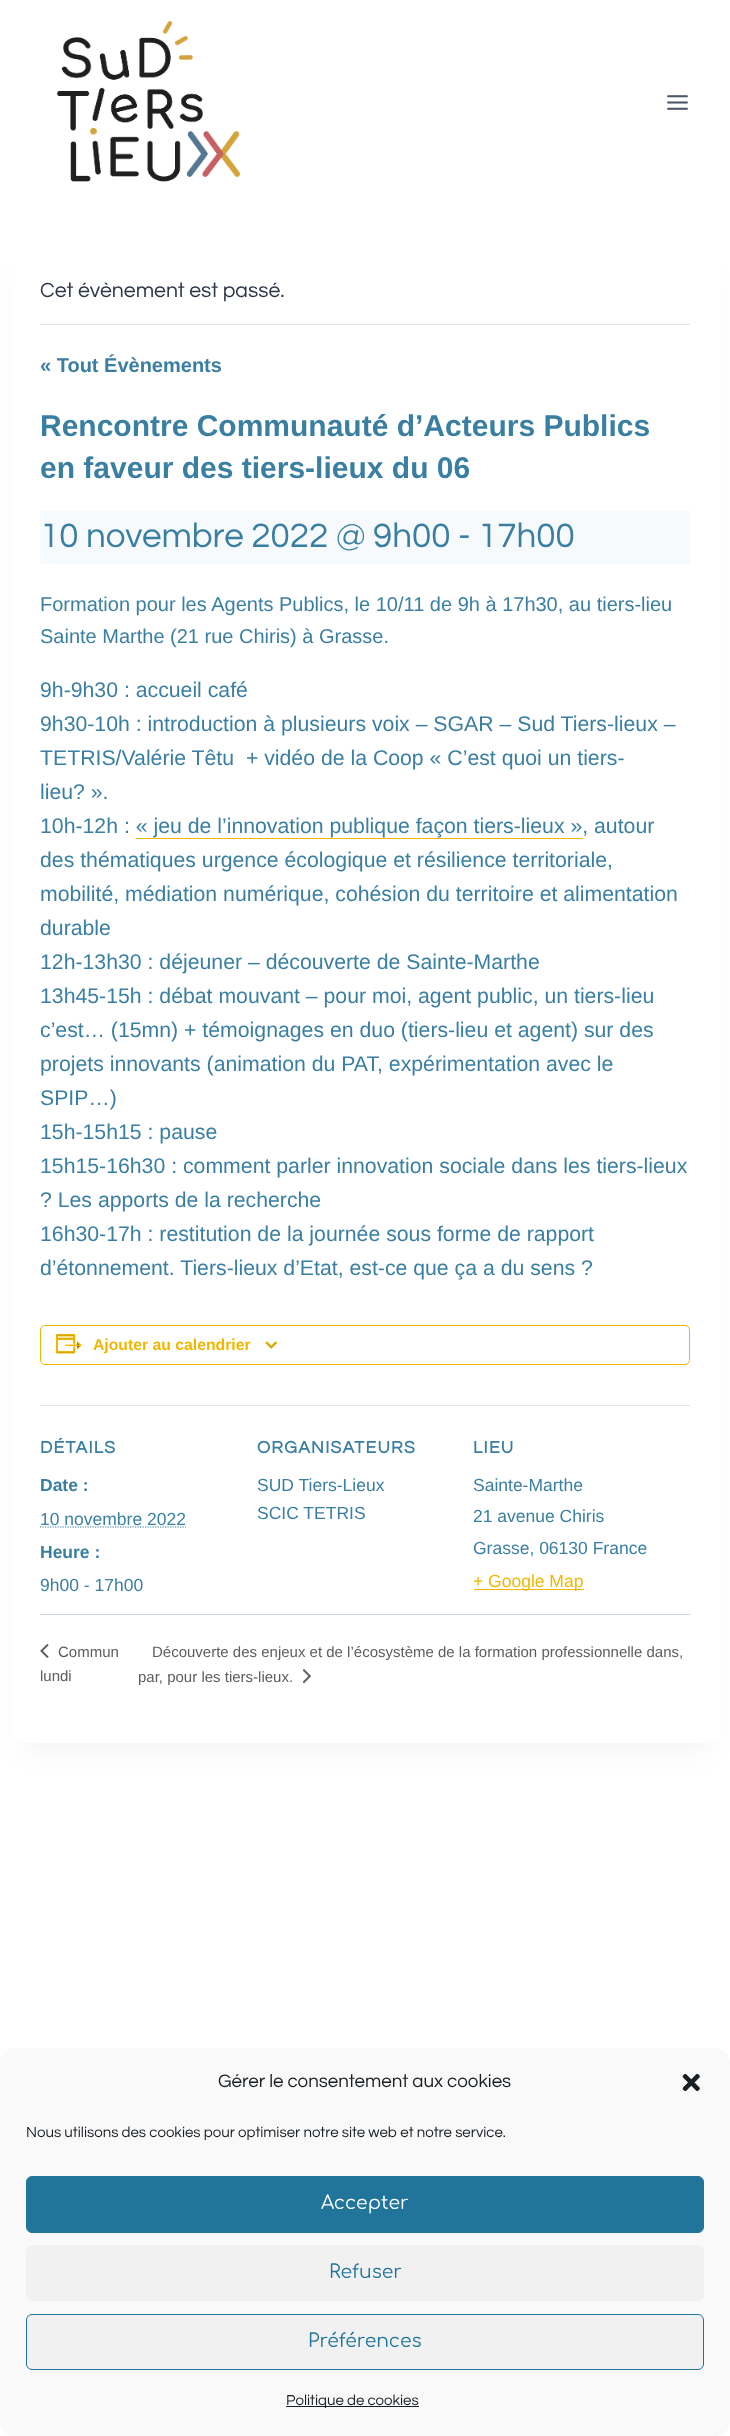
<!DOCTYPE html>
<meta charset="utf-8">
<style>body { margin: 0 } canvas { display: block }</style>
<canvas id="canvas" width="730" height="2436"></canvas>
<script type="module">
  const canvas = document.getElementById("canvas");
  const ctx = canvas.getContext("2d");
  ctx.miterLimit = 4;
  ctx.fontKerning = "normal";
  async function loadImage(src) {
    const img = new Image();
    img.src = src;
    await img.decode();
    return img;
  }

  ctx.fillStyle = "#ffffff";
  ctx.fillRect(0, 0, 730, 2436);
  ctx.drawImage(await loadImage("img1.png"), 56, 21, 184, 161);
  ctx.drawImage(await loadImage("img2.png"), 667, 95, 21, 15);
  ctx.fillStyle = "rgba(0, 0, 0, 0.05)";
  ctx.filter = "blur(15.5px)";
  ctx.beginPath();
  ctx.rect(23, 275, 685, 1474);
  ctx.fill();
  ctx.filter = "none";
  ctx.fillStyle = "#ffffff";
  ctx.beginPath();
  ctx.roundRect(10, 244, 710, 1499, 5);
  ctx.fill();
  ctx.fillStyle = "#e4e4e4";
  ctx.fillRect(40, 324, 650, 1);
  ctx.font = "21.25px Questrial";
  ctx.fillStyle = "#2d3748";
  ctx.fillText("Cet évènement est passé.", 40, 297);
  ctx.font = "bold 20px Liberation Sans";
  ctx.fillStyle = "#3a7fa2";
  ctx.fillText("« Tout Évènements", 40, 372);
  ctx.font = "bold 30px Liberation Sans";
  ctx.fillText("Rencontre Communauté d’Acteurs Publics", 40, 436);
  ctx.fillText("en faveur des tiers-lieux du 06", 40, 478);
  ctx.fillStyle = "#f7fafc";
  ctx.fillRect(40, 511, 650, 53);
  ctx.font = "35px Questrial";
  ctx.fillStyle = "#3a7fa2";
  ctx.fillText("10 novembre 2022 @ 9h00 - 17h00", 40, 547);
  ctx.font = "20px Liberation Sans";
  ctx.fillText("Formation pour les Agents Publics, le 10/11 de 9h à 17h30, au tiers-lieu", 40, 611);
  ctx.fillText("Sainte Marthe (21 rue Chiris) à Grasse.", 40, 643);
  ctx.font = "21.25px Liberation Sans";
  ctx.fillText("9h-9h30 : accueil café", 40, 697);
  ctx.fillText("9h30-10h : introduction à plusieurs voix – SGAR – Sud Tiers-lieux –", 40, 731);
  ctx.fillText("TETRIS/Valérie Têtu  + vidéo de la Coop « C’est quoi un tiers-", 40, 765);
  ctx.fillText("lieu? ».", 40, 799);
  ctx.fillText("10h-12h : « jeu de l’innovation publique façon tiers-lieux », autour", 40, 833);
  ctx.fillStyle = "#f1b700";
  ctx.fillRect(136, 838, 447, 1);
  ctx.fillStyle = "#3a7fa2";
  ctx.fillText("des thématiques urgence écologique et résilience territoriale,", 40, 867);
  ctx.fillText("mobilité, médiation numérique, cohésion du territoire et alimentation", 40, 901);
  ctx.fillText("durable", 40, 935);
  ctx.fillText("12h-13h30 : déjeuner – découverte de Sainte-Marthe", 40, 969);
  ctx.fillText("13h45-15h : débat mouvant – pour moi, agent public, un tiers-lieu", 40, 1003);
  ctx.fillText("c’est… (15mn) + témoignages en duo (tiers-lieu et agent) sur des", 40, 1037);
  ctx.fillText("projets innovants (animation du PAT, expérimentation avec le", 40, 1071);
  ctx.fillText("SPIP…)", 40, 1105);
  ctx.fillText("15h-15h15 : pause", 40, 1139);
  ctx.fillText("15h15-16h30 : comment parler innovation sociale dans les tiers-lieux", 40, 1173);
  ctx.fillText("? Les apports de la recherche", 40, 1207);
  ctx.fillText("16h30-17h : restitution de la journée sous forme de rapport", 40, 1241);
  ctx.fillText("d’étonnement. Tiers-lieux d’Etat, est-ce que ça a du sens ?", 40, 1275);
  ctx.beginPath();
  ctx.roundRect(40.5, 1325.5, 649, 39, 4.5);
  ctx.strokeStyle = "#f1b700";
  ctx.stroke();
  ctx.drawImage(await loadImage("img3.png"), 56, 1334, 26, 20);
  ctx.font = "bold 15.75px Liberation Sans";
  ctx.fillStyle = "#f1b700";
  ctx.fillText("Ajouter au calendrier", 93, 1350);
  ctx.drawImage(await loadImage("img4.png"), 265, 1341, 13, 8);
  ctx.fillStyle = "#e4e4e4";
  ctx.fillRect(40, 1405, 650, 1);
  ctx.letterSpacing = "1.25px";
  ctx.font = "bold 17.5px Questrial";
  ctx.fillStyle = "#3a7fa2";
  ctx.fillText("DÉTAILS", 40, 1453);
  ctx.letterSpacing = "0px";
  ctx.font = "bold 17.5px Liberation Sans";
  ctx.fillText("Date :", 40, 1491);
  ctx.font = "17.5px Liberation Sans";
  ctx.fillText("10 novembre 2022", 40, 1525);
  ctx.beginPath();
  ctx.moveTo(40, 1527);
  ctx.lineTo(186, 1527);
  ctx.strokeStyle = "#3a7fa2";
  ctx.lineWidth = 1.2;
  ctx.setLineDash([1.25, 1.25]);
  ctx.stroke();
  ctx.font = "bold 17.5px Liberation Sans";
  ctx.fillText("Heure :", 40, 1558);
  ctx.font = "17.5px Liberation Sans";
  ctx.fillText("9h00 - 17h00", 40, 1591);
  ctx.letterSpacing = "1.25px";
  ctx.font = "bold 17.5px Questrial";
  ctx.fillText("ORGANISATEURS", 257, 1453);
  ctx.letterSpacing = "0px";
  ctx.font = "17.5px Liberation Sans";
  ctx.fillText("SUD Tiers-Lieux", 257, 1491);
  ctx.fillText("SCIC TETRIS", 257, 1519);
  ctx.letterSpacing = "1.25px";
  ctx.font = "bold 17.5px Questrial";
  ctx.fillText("LIEU", 473, 1453);
  ctx.letterSpacing = "0px";
  ctx.font = "17.5px Liberation Sans";
  ctx.fillText("Sainte-Marthe", 473, 1491);
  ctx.fillText("21 avenue Chiris", 473, 1522);
  ctx.fillText("Grasse, 06130 France", 473, 1554);
  ctx.fillStyle = "#f1b700";
  ctx.fillRect(474, 1589, 110, 1);
  ctx.fillText("+ Google Map", 473, 1587);
  ctx.fillStyle = "#cbd5e0";
  ctx.fillRect(40, 1614, 650, 1);
  ctx.drawImage(await loadImage("img5.png"), 40, 1644, 9, 14);
  ctx.font = "15px Liberation Sans";
  ctx.fillStyle = "#5d5d5d";
  ctx.fillText("Commun", 58, 1657);
  ctx.fillText("lundi", 40, 1681);
  ctx.fillText("Découverte des enjeux et de l’écosystème de la formation professionnelle dans,", 152, 1657);
  ctx.fillText("par, pour les tiers-lieux.", 138, 1682);
  ctx.drawImage(await loadImage("img6.png"), 303, 1669, 8, 15);
  ctx.fillStyle = "#f9f9f9";
  ctx.beginPath();
  ctx.roundRect(0, 2048, 730, 388, 15);
  ctx.fill();
  ctx.font = "18.75px Questrial";
  ctx.fillStyle = "#191e23";
  ctx.fillText("Gérer le consentement aux cookies", 218, 2087);
  ctx.drawImage(await loadImage("img7.png"), 682, 2073, 18, 19);
  ctx.font = "15px Questrial";
  ctx.fillText("Nous utilisons des cookies pour optimiser notre site web et notre service.", 26, 2137);
  ctx.fillStyle = "#21759b";
  ctx.beginPath();
  ctx.roundRect(26.5, 2176.5, 677, 56, 5.5);
  ctx.fill();
  ctx.strokeStyle = "#21759b";
  ctx.lineWidth = 1;
  ctx.setLineDash([]);
  ctx.stroke();
  ctx.font = "18.75px Comfortaa";
  ctx.fillStyle = "#ffffff";
  ctx.fillText("Accepter", 321, 2209);
  ctx.fillStyle = "#f1f1f1";
  ctx.beginPath();
  ctx.roundRect(26, 2245, 678, 56, 6);
  ctx.fill();
  ctx.fillStyle = "#21759b";
  ctx.fillText("Refuser", 329, 2278);
  ctx.fillStyle = "#f1f1f1";
  ctx.beginPath();
  ctx.roundRect(26.5, 2314.5, 677, 55, 5.5);
  ctx.fill();
  ctx.stroke();
  ctx.fillStyle = "#21759b";
  ctx.fillText("Préférences", 308, 2347);
  ctx.fillStyle = "#191e23";
  ctx.fillRect(286, 2406, 133, 1);
  ctx.font = "15px Questrial";
  ctx.fillText("Politique de cookies", 286, 2405);
</script>
